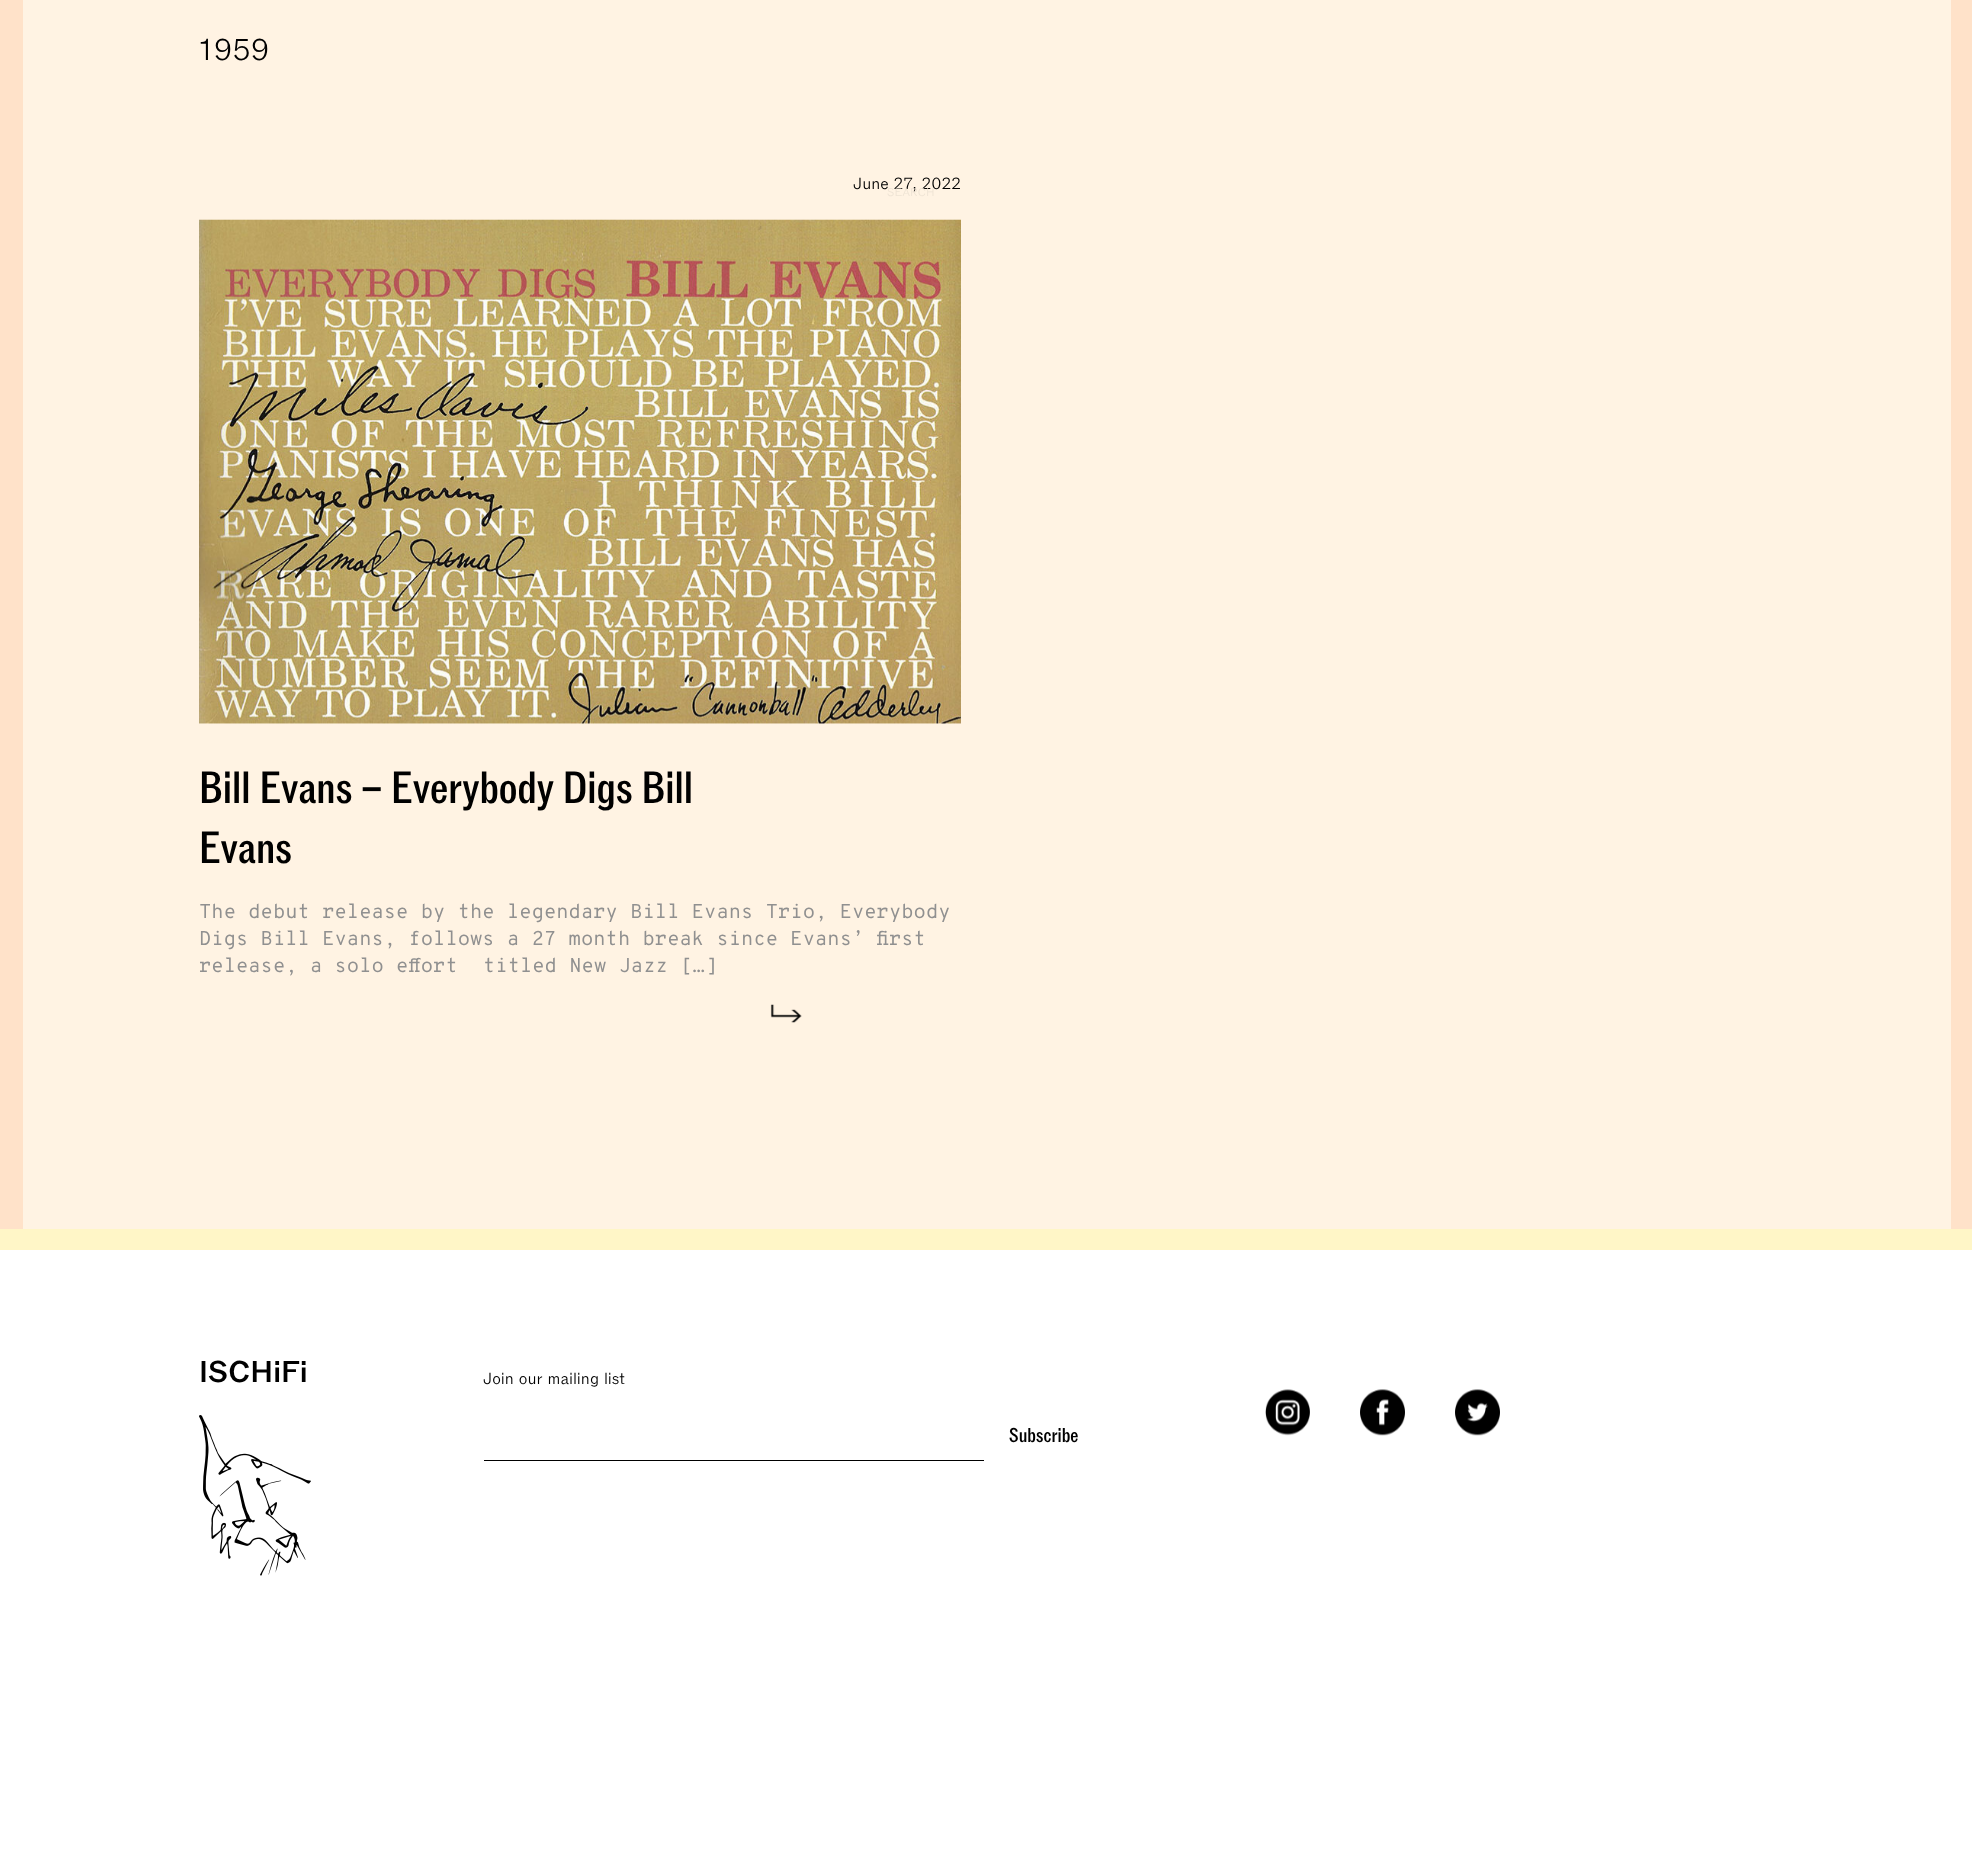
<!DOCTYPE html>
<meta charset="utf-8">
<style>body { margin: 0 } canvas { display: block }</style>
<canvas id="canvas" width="1972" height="1867"></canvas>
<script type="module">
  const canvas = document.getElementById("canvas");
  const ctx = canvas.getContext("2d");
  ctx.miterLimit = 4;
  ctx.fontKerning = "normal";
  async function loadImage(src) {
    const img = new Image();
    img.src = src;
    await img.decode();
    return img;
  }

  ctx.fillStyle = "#fff3e3";
  ctx.fillRect(0, 0, 1972, 1867);
  ctx.fillStyle = "#fff6c7";
  ctx.fillRect(0, 1229, 1972, 21);
  ctx.fillStyle = "#ffe2c9";
  ctx.fillRect(0, 0, 23, 1229);
  ctx.font = "300 30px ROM";
  ctx.fillStyle = "#000000";
  ctx.fillText("1959", 199, 60);
  ctx.font = "300 16.25px ROM";
  ctx.fillText("June 27, 2022", 853, 189);
  ctx.drawImage(await loadImage("img1.png"), 199, 219, 762, 505);
  ctx.font = "500 45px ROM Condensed";
  ctx.fillText("Bill Evans – Everybody Digs Bill", 199, 803);
  ctx.fillText("Evans", 199, 863);
  ctx.font = "20px Overpass Mono";
  ctx.fillStyle = "#909090";
  ctx.fillText("The debut release by the legendary Bill Evans Trio, Everybody", 199, 918);
  ctx.fillText("Digs Bill Evans, follows a 27 month break since Evans’ first", 199, 945);
  ctx.fillText("release, a solo effort", 199, 972);
  ctx.fillText("titled New Jazz […]", 483, 972);
  ctx.drawImage(await loadImage("img2.png"), 770, 1004, 32, 19);
  ctx.fillStyle = "#ffe2c9";
  ctx.fillRect(1951, 0, 21, 1229);
  ctx.font = "300 11.25px ROM";
  ctx.fillStyle = "#eee3d4";
  ctx.fillText("SEARCH", 887, 196);
  ctx.fillStyle = "#ffffff";
  ctx.fillRect(0, 1250, 1972, 617);
  ctx.font = "500 30px ROM";
  ctx.fillStyle = "#000000";
  ctx.fillText("ISCHiFi", 199, 1382);
  ctx.drawImage(await loadImage("img3.png"), 199, 1415, 112, 161);
  ctx.font = "300 16.25px ROM";
  ctx.fillText("Join our mailing list", 483, 1384);
  ctx.font = "500 20px ROM Condensed";
  ctx.fillText("Subscribe", 1009, 1442);
  ctx.fillRect(484, 1460, 500, 1);
  ctx.drawImage(await loadImage("img4.png"), 1265, 1389, 45, 47);
  ctx.drawImage(await loadImage("img5.png"), 1360, 1389, 45, 47);
  ctx.drawImage(await loadImage("img6.png"), 1455, 1389, 45, 47);
</script>
